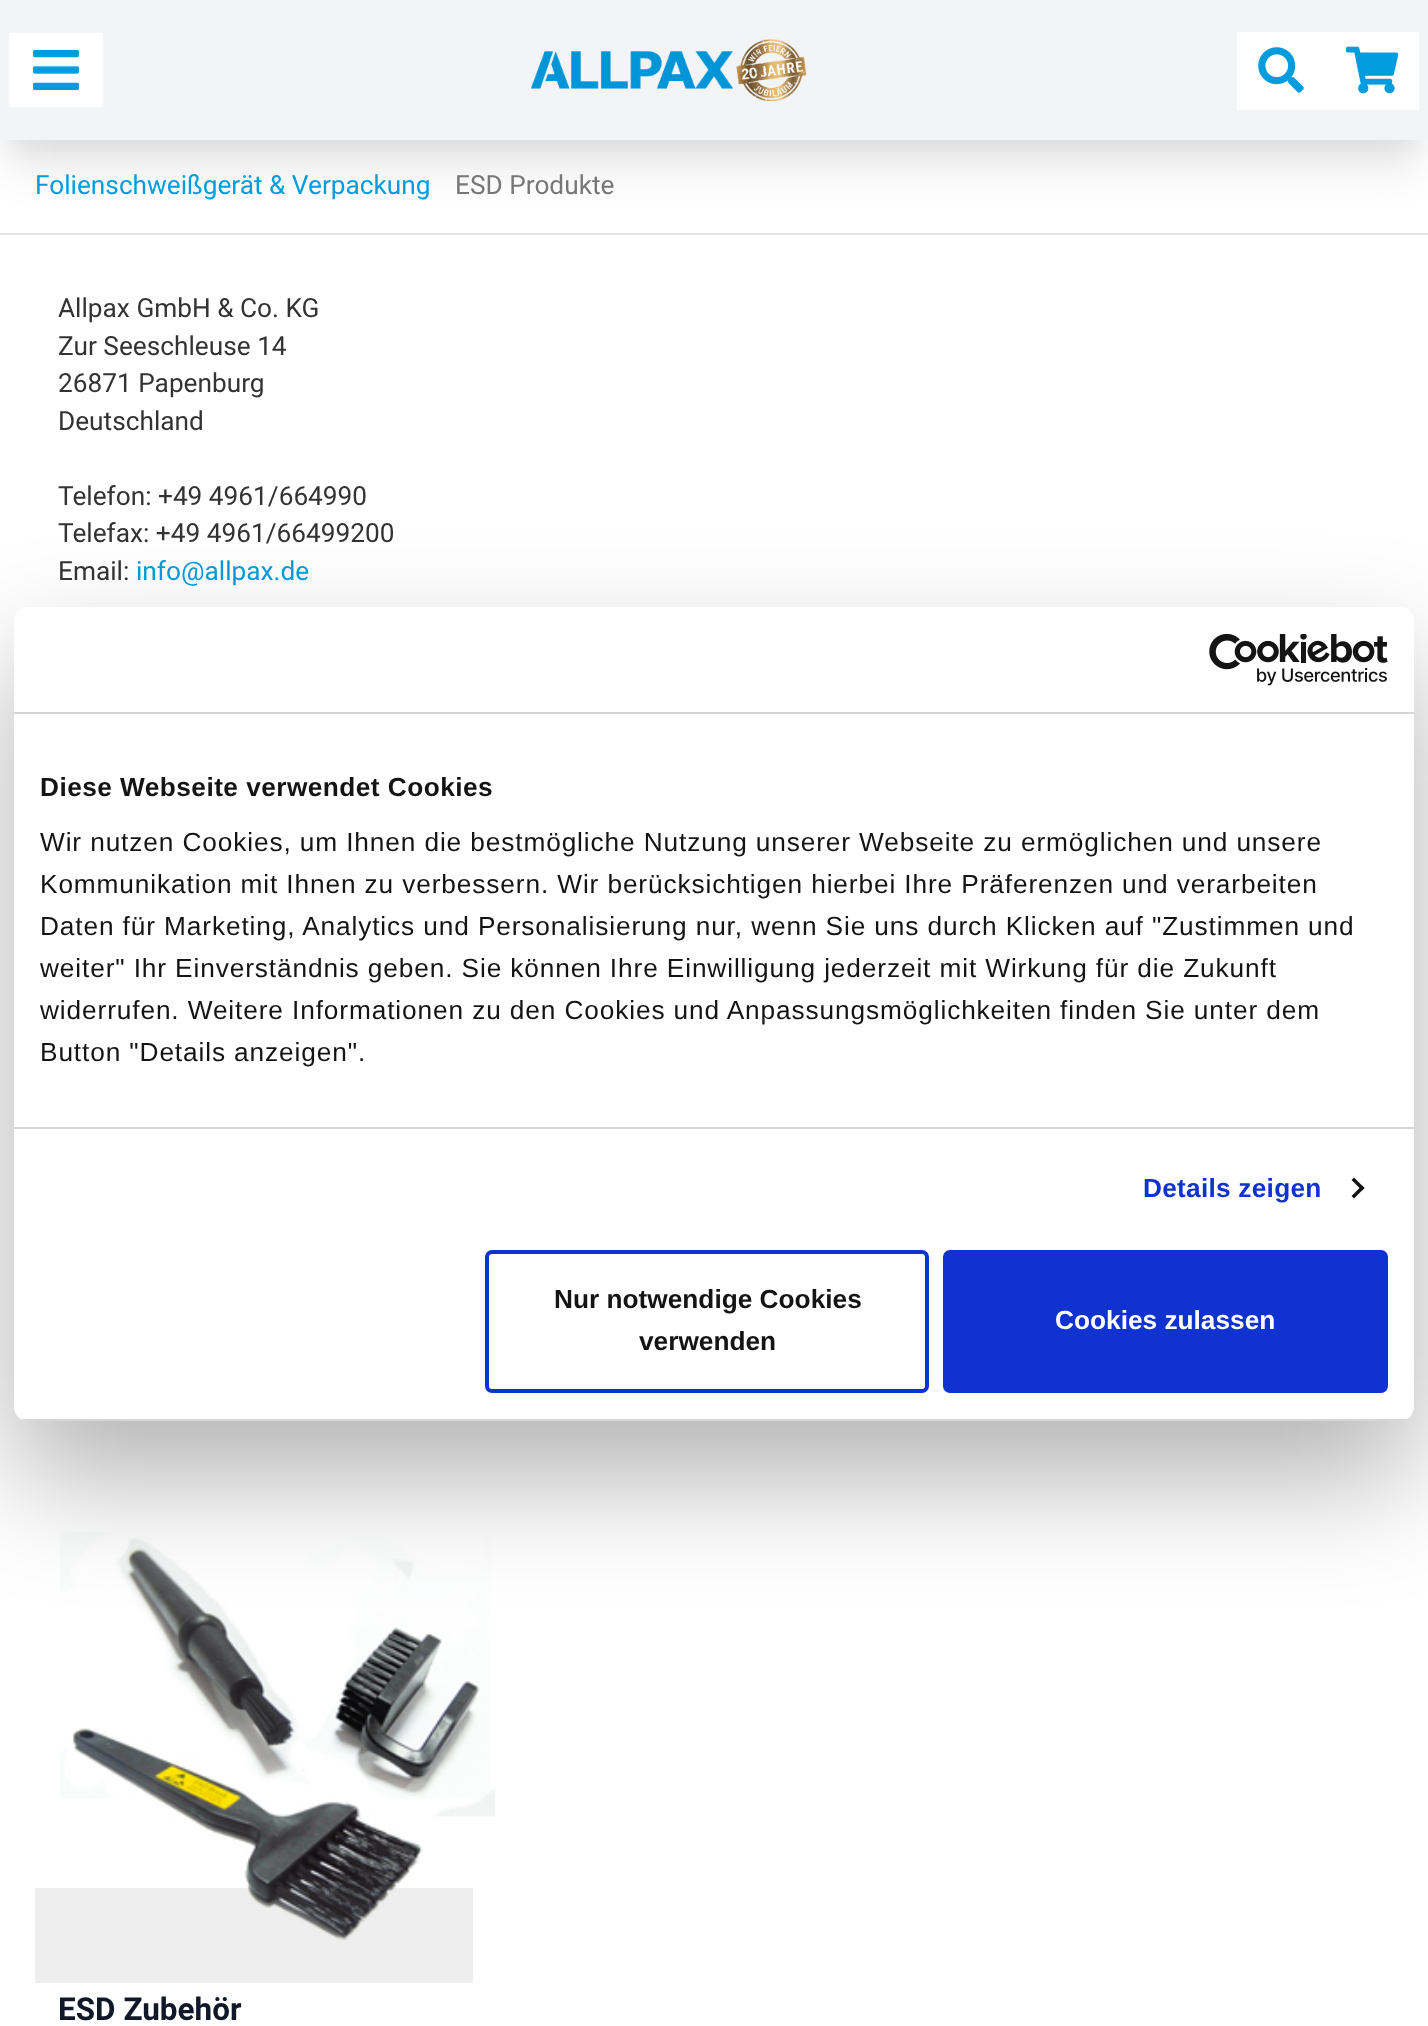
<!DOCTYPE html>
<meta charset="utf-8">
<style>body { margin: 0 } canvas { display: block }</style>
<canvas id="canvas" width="1428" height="2026"></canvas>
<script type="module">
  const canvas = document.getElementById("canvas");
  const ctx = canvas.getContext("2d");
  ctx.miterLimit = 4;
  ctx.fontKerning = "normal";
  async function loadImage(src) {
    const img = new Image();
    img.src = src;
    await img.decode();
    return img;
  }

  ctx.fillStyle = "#ffffff";
  ctx.fillRect(0, 0, 1428, 2026);
  ctx.fillStyle = "rgba(0, 0, 0, 0.04)";
  ctx.filter = "blur(9px)";
  ctx.beginPath();
  ctx.rect(9, 26, 1410, 123);
  ctx.fill();
  ctx.filter = "none";
  ctx.fillStyle = "rgba(0, 0, 0, 0.1)";
  ctx.filter = "blur(22px)";
  ctx.beginPath();
  ctx.rect(9, 44, 1410, 122);
  ctx.fill();
  ctx.filter = "none";
  ctx.fillStyle = "#f3f4f6";
  ctx.fillRect(0, 0, 1428, 140);
  ctx.fillStyle = "#ffffff";
  ctx.fillRect(9, 33, 94, 74);
  ctx.drawImage(await loadImage("img1.png"), 33, 49, 46, 42);
  ctx.drawImage(await loadImage("img2.png"), 530, 39, 277, 62);
  ctx.fillRect(1237, 32, 182, 78);
  ctx.drawImage(await loadImage("img3.png"), 1258, 47, 46, 46);
  ctx.drawImage(await loadImage("img4.png"), 1346, 46, 52, 48);
  ctx.fillStyle = "#e5e5e5";
  ctx.fillRect(0, 233, 1428, 2);
  ctx.font = "26.25px Roboto";
  ctx.fillStyle = "#009cde";
  ctx.fillText("Folienschweißgerät & Verpackung", 35, 194);
  ctx.fillStyle = "#777777";
  ctx.fillText("ESD Produkte", 455, 194);
  ctx.fillStyle = "#333333";
  ctx.fillText("Allpax GmbH & Co. KG", 58, 317);
  ctx.fillText("Zur Seeschleuse 14", 58, 355);
  ctx.fillText("26871 Papenburg", 58, 392);
  ctx.fillText("Deutschland", 58, 430);
  ctx.fillText("Telefon: +49 4961/664990", 58, 505);
  ctx.fillText("Telefax: +49 4961/66499200", 58, 542);
  ctx.fillText("Email:", 58, 580);
  ctx.fillStyle = "#009cde";
  ctx.fillText("info@allpax.de", 136, 580);
  ctx.drawImage(await loadImage("img5.png"), 60, 1532, 436, 409);
  ctx.font = "bold 31.5px Roboto";
  ctx.fillStyle = "#111827";
  ctx.fillText("ESD Zubehör", 58, 2020);
  ctx.fillStyle = "rgba(0, 0, 0, 0.3)";
  ctx.filter = "blur(59.5px)";
  ctx.beginPath();
  ctx.roundRect(14, 663, 1400, 814, 14);
  ctx.fill();
  ctx.filter = "none";
  ctx.fillStyle = "#ffffff";
  ctx.beginPath();
  ctx.roundRect(14, 607, 1400, 814, 14);
  ctx.fill();
  ctx.fillStyle = "#d6d6d6";
  ctx.fillRect(14, 712, 1400, 2);
  ctx.drawImage(await loadImage("img6.png"), 1209, 634, 179, 52);
  ctx.fillRect(14, 1127, 1400, 2);
  ctx.letterSpacing = "0.45px";
  ctx.font = "bold 26.25px Liberation Sans";
  ctx.fillStyle = "#141414";
  ctx.fillText("Diese Webseite verwendet Cookies", 40, 796);
  ctx.letterSpacing = "0.88px";
  ctx.font = "26.25px Liberation Sans";
  ctx.fillText("Wir nutzen Cookies, um Ihnen die bestmögliche Nutzung unserer Webseite zu ermöglichen und unsere", 40, 851);
  ctx.fillText("Kommunikation mit Ihnen zu verbessern. Wir berücksichtigen hierbei Ihre Präferenzen und verarbeiten", 40, 893);
  ctx.fillText("Daten für Marketing, Analytics und Personalisierung nur, wenn Sie uns durch Klicken auf \"Zustimmen und", 40, 935);
  ctx.fillText("weiter\" Ihr Einverständnis geben. Sie können Ihre Einwilligung jederzeit mit Wirkung für die Zukunft", 40, 977);
  ctx.fillText("widerrufen. Weitere Informationen zu den Cookies und Anpassungsmöglichkeiten finden Sie unter dem", 40, 1019);
  ctx.fillText("Button \"Details anzeigen\".", 40, 1061);
  ctx.letterSpacing = "0.25px";
  ctx.font = "bold 26.25px Liberation Sans";
  ctx.fillStyle = "#1032cf";
  ctx.fillText("Details zeigen", 1143, 1197);
  ctx.fillStyle = "#141414";
  ctx.beginPath();
  ctx.moveTo(1354, 1177.5);
  ctx.lineTo(1364.5, 1188);
  ctx.lineTo(1362, 1190.5);
  ctx.lineTo(1351.5, 1180);
  ctx.closePath();
  ctx.fill();
  ctx.beginPath();
  ctx.moveTo(1362, 1185.5);
  ctx.lineTo(1364.5, 1188);
  ctx.lineTo(1354, 1198.5);
  ctx.lineTo(1351.5, 1196);
  ctx.closePath();
  ctx.fill();
  ctx.save();
  ctx.beginPath();
  ctx.roundRect(14, 607, 1400, 814, 14);
  ctx.clip();
  ctx.fillStyle = "#d6d6d6";
  ctx.fillRect(14, 1419, 1400, 2);
  ctx.restore();
  ctx.beginPath();
  ctx.roundRect(487, 1252, 440, 139, 5);
  ctx.strokeStyle = "#1032cf";
  ctx.lineWidth = 4;
  ctx.stroke();
  ctx.letterSpacing = "0px";
  ctx.fillText("Nur notwendige Cookies", 554, 1308);
  ctx.fillText("verwenden", 639, 1350);
  ctx.fillStyle = "#1032cf";
  ctx.beginPath();
  ctx.roundRect(945, 1252, 441, 139, 5);
  ctx.fill();
  ctx.stroke();
  ctx.fillStyle = "#ffffff";
  ctx.fillText("Cookies zulassen", 1055, 1329);
  ctx.fillStyle = "rgba(68, 68, 68, 0.09)";
  ctx.fillRect(35, 1888, 438, 95);
</script>
